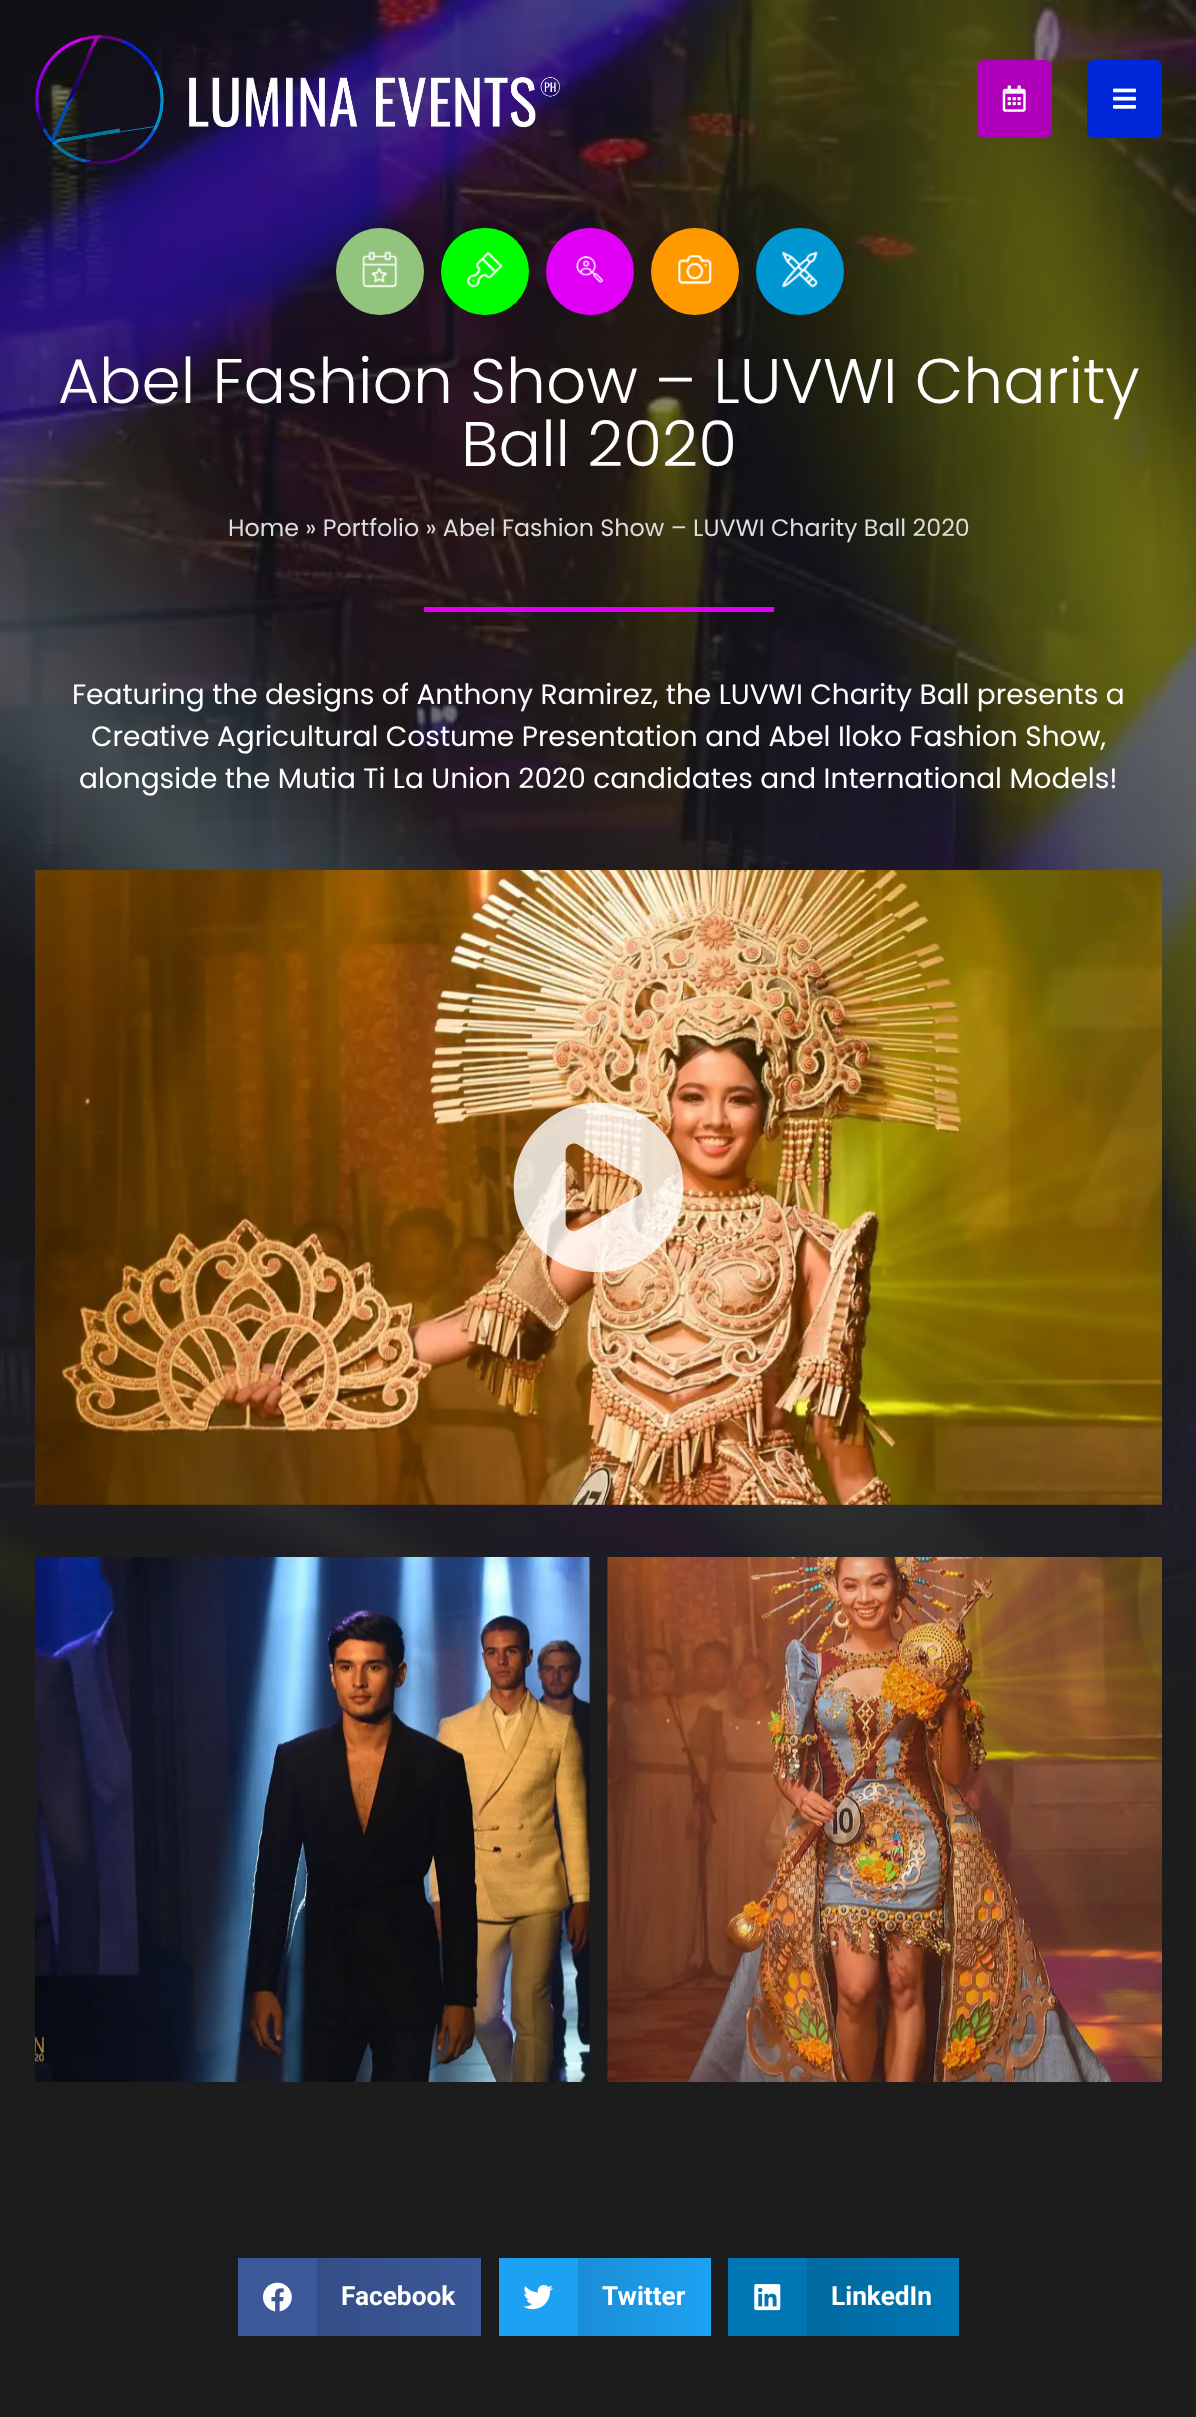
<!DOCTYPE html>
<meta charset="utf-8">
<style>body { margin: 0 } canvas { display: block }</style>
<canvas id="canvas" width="1196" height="2417"></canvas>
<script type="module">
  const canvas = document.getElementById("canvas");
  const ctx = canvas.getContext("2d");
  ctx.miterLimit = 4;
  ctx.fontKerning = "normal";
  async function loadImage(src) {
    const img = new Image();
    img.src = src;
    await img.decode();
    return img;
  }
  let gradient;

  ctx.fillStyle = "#ffffff";
  ctx.fillRect(0, 0, 1196, 2417);
  ctx.drawImage(await loadImage("img4.png"), 0, 0, 1196, 2417);
  ctx.drawImage(await loadImage("img1.png"), 35, 35, 525, 130);
  ctx.fillStyle = "#b100bc";
  ctx.beginPath();
  ctx.roundRect(977, 60, 75, 78, 7);
  ctx.fill();
  ctx.drawImage(await loadImage("img2.png"), 1002, 85, 24, 27);
  ctx.fillStyle = "#0028da";
  ctx.beginPath();
  ctx.roundRect(1087, 60, 75, 78, 7);
  ctx.fill();
  ctx.drawImage(await loadImage("img3.png"), 1113, 88, 23, 21);
  ctx.fillStyle = "#93c47d";
  ctx.beginPath();
  ctx.roundRect(336, 228, 88, 87, 43.5);
  ctx.fill();
  ctx.drawImage(await loadImage("img5.png"), 362, 251, 36, 37);
  ctx.fillStyle = "#00ff00";
  ctx.beginPath();
  ctx.roundRect(441, 228, 88, 87, 43.5);
  ctx.fill();
  ctx.drawImage(await loadImage("img6.png"), 467, 251, 36, 37);
  ctx.fillStyle = "#e000f6";
  ctx.beginPath();
  ctx.roundRect(546, 228, 88, 87, 43.5);
  ctx.fill();
  ctx.drawImage(await loadImage("img7.png"), 576, 256, 28, 28);
  ctx.fillStyle = "#ff9900";
  ctx.beginPath();
  ctx.roundRect(651, 228, 88, 87, 43.5);
  ctx.fill();
  ctx.drawImage(await loadImage("img8.png"), 678, 255, 34, 30);
  ctx.fillStyle = "#0096d1";
  ctx.beginPath();
  ctx.roundRect(756, 228, 88, 87, 43.5);
  ctx.fill();
  ctx.drawImage(await loadImage("img9.png"), 782, 251, 36, 37);
  ctx.font = "300 63px Poppins";
  ctx.fillStyle = "#ffffff";
  ctx.fillText("Abel Fashion Show – LUVWI Charity", 58, 403);
  ctx.fillText("Ball 2020", 461, 466);
  ctx.font = "23.8px Poppins";
  ctx.fillStyle = "#dddddd";
  ctx.fillText("Home » Portfolio » Abel Fashion Show – LUVWI Charity Ball 2020", 228, 536);
  ctx.fillStyle = "#e000f6";
  ctx.fillRect(424, 607, 350, 5);
  ctx.font = "28px Poppins";
  ctx.fillStyle = "#ffffff";
  ctx.fillText("Featuring the designs of Anthony Ramirez, the LUVWI Charity Ball presents a", 72, 704);
  ctx.fillText("Creative Agricultural Costume Presentation and Abel Iloko Fashion Show,", 91, 746);
  ctx.fillText("alongside the Mutia Ti La Union 2020 candidates and International Models!", 79, 788);
  ctx.drawImage(await loadImage("img10.png"), 35, 870, 1127, 635);
  ctx.drawImage(await loadImage("img11.png"), 513, 1102, 171, 171);
  ctx.drawImage(await loadImage("img12.png"), 35, 1557, 555, 525);
  ctx.drawImage(await loadImage("img13.png"), 607, 1557, 555, 525);
  ctx.fillStyle = "#3b5998";
  ctx.fillRect(238, 2258, 79, 78);
  ctx.drawImage(await loadImage("img14.png"), 263, 2282, 29, 30);
  gradient = ctx.createLinearGradient(317, 2297, 481, 2297);
  gradient.addColorStop(0, "#344e86");
  gradient.addColorStop(1, "#3b5998");
  ctx.fillStyle = gradient;
  ctx.fillRect(317, 2258, 164, 78);
  ctx.font = "bold 26.25px Roboto";
  ctx.fillStyle = "#ffffff";
  ctx.fillText("Facebook", 341, 2305);
  ctx.fillStyle = "#1da1f2";
  ctx.fillRect(499, 2258, 79, 78);
  ctx.drawImage(await loadImage("img15.png"), 523, 2285, 30, 25);
  gradient = ctx.createLinearGradient(578, 2297, 711, 2297);
  gradient.addColorStop(0, "#1a8ed5");
  gradient.addColorStop(1, "#1da1f2");
  ctx.fillStyle = gradient;
  ctx.fillRect(578, 2258, 133, 78);
  ctx.fillStyle = "#ffffff";
  ctx.fillText("Twitter", 602, 2305);
  ctx.fillStyle = "#0077b5";
  ctx.fillRect(728, 2258, 79, 78);
  ctx.drawImage(await loadImage("img16.png"), 754, 2284, 27, 27);
  gradient = ctx.createLinearGradient(807, 2297, 959, 2297);
  gradient.addColorStop(0, "#00699f");
  gradient.addColorStop(1, "#0077b5");
  ctx.fillStyle = gradient;
  ctx.fillRect(807, 2258, 152, 78);
  ctx.fillStyle = "#ffffff";
  ctx.fillText("LinkedIn", 831, 2305);
</script>
